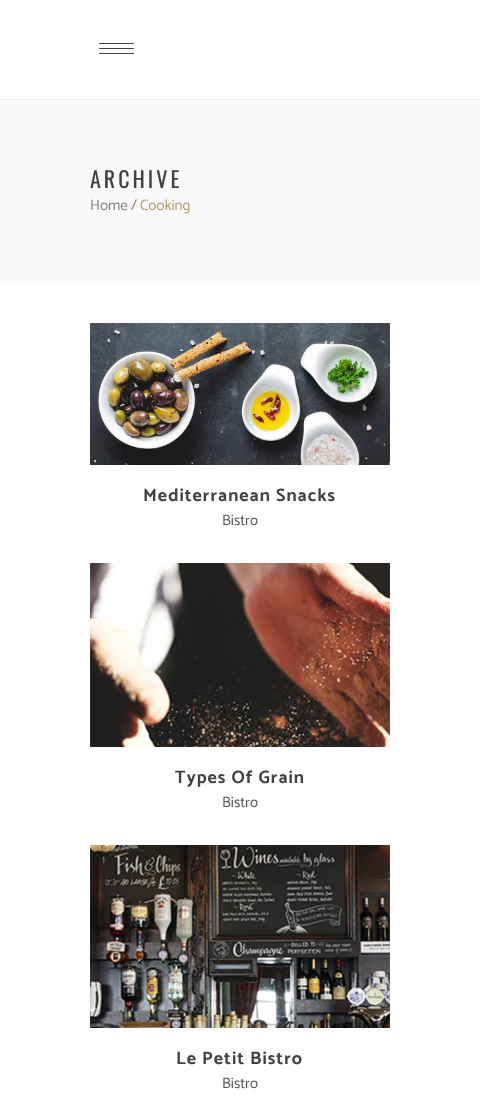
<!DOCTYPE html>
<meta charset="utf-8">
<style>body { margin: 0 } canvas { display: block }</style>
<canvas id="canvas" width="480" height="1116"></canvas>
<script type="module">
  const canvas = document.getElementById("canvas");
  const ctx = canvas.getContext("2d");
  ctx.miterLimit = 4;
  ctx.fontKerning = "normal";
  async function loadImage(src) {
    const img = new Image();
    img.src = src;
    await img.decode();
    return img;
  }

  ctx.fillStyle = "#ffffff";
  ctx.fillRect(0, 0, 480, 1116);
  ctx.fillStyle = "#e9eef4";
  ctx.fillRect(0, 99, 480, 1);
  ctx.fillStyle = "#424242";
  ctx.beginPath();
  ctx.roundRect(99, 43, 35, 1, 0.5);
  ctx.fill();
  ctx.beginPath();
  ctx.roundRect(99, 48, 35, 1, 0.5);
  ctx.fill();
  ctx.beginPath();
  ctx.roundRect(99, 53, 35, 1, 0.5);
  ctx.fill();
  ctx.fillStyle = "#faf8f8";
  ctx.fillRect(0, 100, 480, 183);
  ctx.letterSpacing = "3px";
  ctx.font = "22px Oswald";
  ctx.fillStyle = "#424242";
  ctx.fillText("ARCHIVE", 90, 188);
  ctx.letterSpacing = "0px";
  ctx.font = "15px Catamaran";
  ctx.fillStyle = "#808285";
  ctx.fillText("Home", 90, 210);
  ctx.fillText("/", 131, 210);
  ctx.fillStyle = "#af9972";
  ctx.fillText("Cooking", 140, 210);
  ctx.drawImage(await loadImage("img1.png"), 90, 323, 300, 142);
  ctx.letterSpacing = "1px";
  ctx.font = "bold 18px Catamaran";
  ctx.fillStyle = "#424242";
  ctx.fillText("Mediterranean Snacks", 143, 501);
  ctx.letterSpacing = "0px";
  ctx.font = "15px Catamaran";
  ctx.fillStyle = "#545354";
  ctx.fillText("Bistro", 222, 525);
  ctx.drawImage(await loadImage("img2.png"), 90, 563, 300, 184);
  ctx.letterSpacing = "1px";
  ctx.font = "bold 18px Catamaran";
  ctx.fillStyle = "#424242";
  ctx.fillText("Types Of Grain", 175, 783);
  ctx.letterSpacing = "0px";
  ctx.font = "15px Catamaran";
  ctx.fillStyle = "#545354";
  ctx.fillText("Bistro", 222, 807);
  ctx.drawImage(await loadImage("img3.png"), 90, 845, 300, 183);
  ctx.letterSpacing = "1px";
  ctx.font = "bold 18px Catamaran";
  ctx.fillStyle = "#424242";
  ctx.fillText("Le Petit Bistro", 176, 1064);
  ctx.letterSpacing = "0px";
  ctx.font = "15px Catamaran";
  ctx.fillStyle = "#545354";
  ctx.fillText("Bistro", 222, 1088);
</script>
